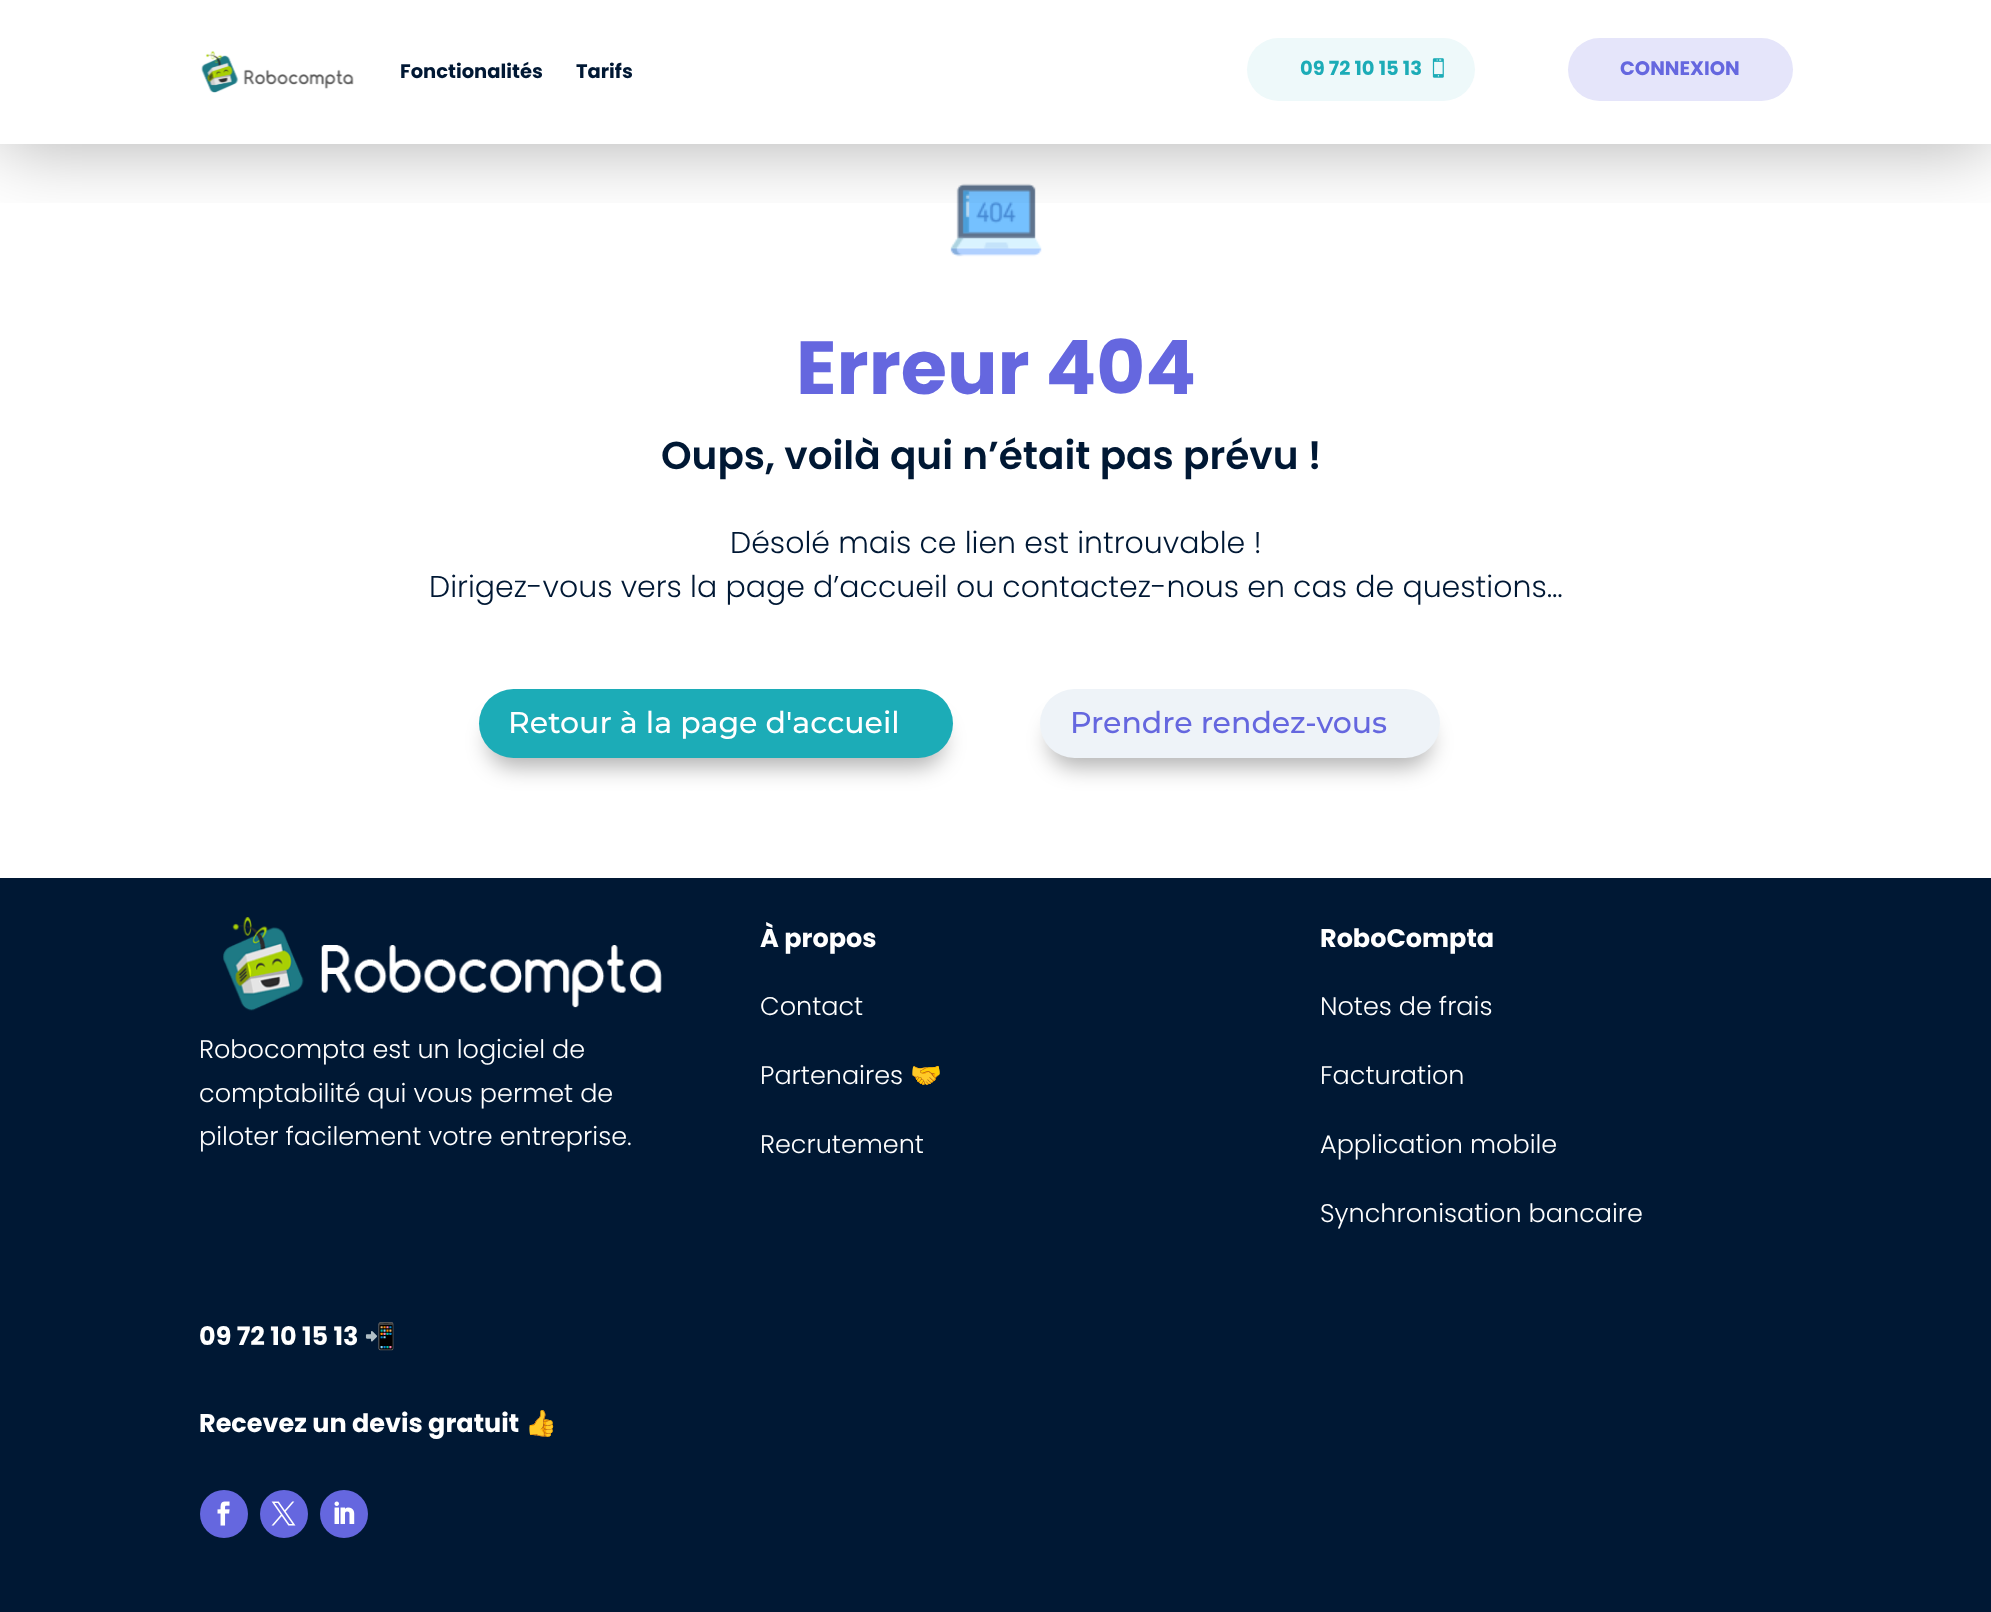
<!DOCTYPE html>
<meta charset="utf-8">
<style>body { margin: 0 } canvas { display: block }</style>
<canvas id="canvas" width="1991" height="1612"></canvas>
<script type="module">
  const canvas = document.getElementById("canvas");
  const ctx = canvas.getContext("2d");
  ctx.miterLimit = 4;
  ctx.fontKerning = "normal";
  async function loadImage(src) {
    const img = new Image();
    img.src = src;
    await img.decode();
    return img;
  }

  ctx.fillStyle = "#ffffff";
  ctx.fillRect(0, 0, 1991, 1612);
  ctx.drawImage(await loadImage("img3.png"), 950, 183, 92, 74);
  ctx.save();
  ctx.beginPath();
  ctx.rect(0, 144, 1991, 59);
  ctx.clip();
  ctx.fillStyle = "rgba(0, 0, 0, 0.3)";
  ctx.filter = "blur(37.5px)";
  ctx.beginPath();
  ctx.rect(0, 3, 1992, 144);
  ctx.fill();
  ctx.filter = "none";
  ctx.restore();
  ctx.drawImage(await loadImage("img1.png"), 201, 51, 153, 42);
  ctx.font = "bold 19.5px Poppins";
  ctx.fillStyle = "#001834";
  ctx.fillText("Fonctionalités", 400, 78);
  ctx.fillText("Tarifs", 576, 78);
  ctx.fillStyle = "#eef9fa";
  ctx.beginPath();
  ctx.roundRect(1247, 38, 228, 63, 31.5);
  ctx.fill();
  ctx.fillStyle = "#1cacb7";
  ctx.fillText("09 72 10 15 13", 1300, 75);
  ctx.drawImage(await loadImage("img2.png"), 1432, 58, 12, 20);
  ctx.fillStyle = "#e5e5fa";
  ctx.beginPath();
  ctx.roundRect(1568, 38, 225, 63, 31.5);
  ctx.fill();
  ctx.fillStyle = "#6567df";
  ctx.fillText("CONNEXION", 1620, 75);
  ctx.font = "bold 75px Poppins";
  ctx.fillText("Erreur 404", 796, 394);
  ctx.font = "600 39px Poppins";
  ctx.fillStyle = "#001834";
  ctx.fillText("Oups, voilà qui n’était pas prévu !", 661, 469);
  ctx.font = "300 30px Poppins";
  ctx.fillText("Désolé mais ce lien est introuvable !", 730, 553);
  ctx.fillText("Dirigez-vous vers la page d’accueil ou contactez-nous en cas de questions…", 429, 597);
  ctx.fillStyle = "rgba(0, 0, 0, 0.3)";
  ctx.filter = "blur(11px)";
  ctx.beginPath();
  ctx.roundRect(488, 716, 456, 51, 25.5);
  ctx.fill();
  ctx.filter = "none";
  ctx.fillStyle = "#1cacb7";
  ctx.beginPath();
  ctx.roundRect(479, 689, 474, 69, 34.5);
  ctx.fill();
  ctx.font = "500 30px Montserrat";
  ctx.fillStyle = "#ffffff";
  ctx.fillText("Retour à la page d'accueil", 508, 733);
  ctx.fillStyle = "rgba(0, 0, 0, 0.3)";
  ctx.filter = "blur(11px)";
  ctx.beginPath();
  ctx.roundRect(1049, 716, 382, 51, 25.5);
  ctx.fill();
  ctx.filter = "none";
  ctx.fillStyle = "#eef3f8";
  ctx.beginPath();
  ctx.roundRect(1040, 689, 400, 69, 34.5);
  ctx.fill();
  ctx.fillStyle = "#6567df";
  ctx.fillText("Prendre rendez-vous", 1070, 733);
  ctx.fillStyle = "#001834";
  ctx.fillRect(0, 878, 1991, 734);
  ctx.drawImage(await loadImage("img4.png"), 223, 917, 439, 94);
  ctx.font = "300 25.5px Poppins";
  ctx.fillStyle = "#ffffff";
  ctx.fillText("Robocompta est un logiciel de", 199, 1058);
  ctx.fillText("comptabilité qui vous permet de", 199, 1102);
  ctx.fillText("piloter facilement votre entreprise.", 199, 1145);
  ctx.font = "bold 25.5px Poppins";
  ctx.fillText("À propos", 760, 947);
  ctx.font = "300 25.5px Poppins";
  ctx.fillText("Contact", 760, 1015);
  ctx.fillText("Partenaires", 760, 1084);
  ctx.font = "25.5px Noto Color Emoji";
  ctx.fillText("🤝", 910, 1084);
  ctx.font = "300 25.5px Poppins";
  ctx.fillText("Recrutement", 760, 1153);
  ctx.font = "bold 25.5px Poppins";
  ctx.fillText("RoboCompta", 1320, 947);
  ctx.font = "300 25.5px Poppins";
  ctx.fillText("Notes de frais", 1320, 1015);
  ctx.fillText("Facturation", 1320, 1084);
  ctx.fillText("Application mobile", 1320, 1153);
  ctx.fillText("Synchronisation bancaire", 1320, 1222);
  ctx.font = "bold 25.5px Poppins";
  ctx.fillText("09 72 10 15 13", 199, 1345);
  ctx.font = "bold 25.5px Noto Color Emoji";
  ctx.fillText("📲", 364, 1345);
  ctx.font = "bold 25.5px Poppins";
  ctx.fillText("Recevez un devis gratuit", 199, 1432);
  ctx.font = "bold 25.5px Noto Color Emoji";
  ctx.fillText("👍", 525, 1432);
  ctx.fillStyle = "#6567df";
  ctx.beginPath();
  ctx.arc(224, 1514, 24, 0, Math.PI * 2);
  ctx.fill();
  ctx.drawImage(await loadImage("img5.png"), 217, 1501, 13, 25);
  ctx.beginPath();
  ctx.arc(284, 1514, 24, 0, Math.PI * 2);
  ctx.fill();
  ctx.drawImage(await loadImage("img6.png"), 271, 1501, 25, 25);
  ctx.beginPath();
  ctx.arc(344, 1514, 24, 0, Math.PI * 2);
  ctx.fill();
  ctx.drawImage(await loadImage("img7.png"), 334, 1501, 21, 23);
</script>
